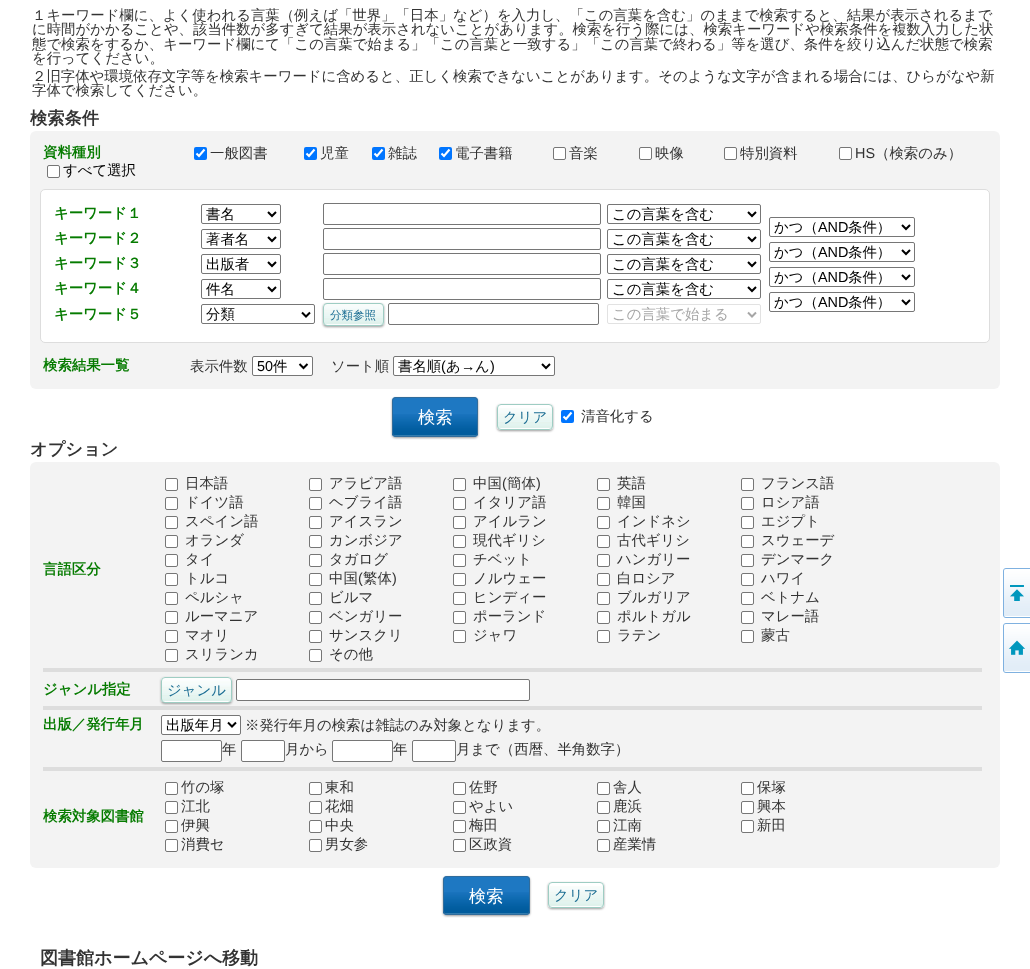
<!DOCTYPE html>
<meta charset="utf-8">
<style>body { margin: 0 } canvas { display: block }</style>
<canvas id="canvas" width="1030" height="969"></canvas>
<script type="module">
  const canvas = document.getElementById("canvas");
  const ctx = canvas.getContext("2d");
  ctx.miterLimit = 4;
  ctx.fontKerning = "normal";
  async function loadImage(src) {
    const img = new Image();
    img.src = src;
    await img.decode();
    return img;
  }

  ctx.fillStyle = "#ffffff";
  ctx.fillRect(0, 0, 1030, 969);
  ctx.font = "500 14.4px WenQuanYi Zen Hei";
  ctx.fillStyle = "#333333";
  ctx.fillText("１キーワード欄に、よく使われる言葉（例えば「世界」「日本」など）を入力し、「この言葉を含む」のままで検索すると、結果が表示されるまで", 32, 20);
  ctx.fillText("に時間がかかることや、該当件数が多すぎて結果が表示されないことがあります。検索を行う際には、検索キーワードや検索条件を複数入力した状", 32, 34);
  ctx.fillText("態で検索をするか、キーワード欄にて「この言葉で始まる」「この言葉と一致する」「この言葉で終わる」等を選び、条件を絞り込んだ状態で検索", 32, 49);
  ctx.fillText("を行ってください。", 32, 63);
  ctx.fillText("２旧字体や環境依存文字等を検索キーワードに含めると、正しく検索できないことがあります。そのような文字が含まれる場合には、ひらがなや新", 32, 81);
  ctx.fillText("字体で検索してください。", 32, 95);
  ctx.font = "bold 17.25px WenQuanYi Zen Hei";
  ctx.fillText("検索条件", 30, 124);
  ctx.fillStyle = "#f3f3f3";
  ctx.beginPath();
  ctx.roundRect(30, 131, 970, 258, 6);
  ctx.fill();
  ctx.font = "bold 14.4px WenQuanYi Zen Hei";
  ctx.fillStyle = "#067b00";
  ctx.fillText("資料種別", 43, 157);
  ctx.fillStyle = "#ffffff";
  ctx.beginPath();
  ctx.roundRect(47.5, 165.5, 12, 12, 1.5);
  ctx.fill();
  ctx.strokeStyle = "#767676";
  ctx.stroke();
  ctx.font = "500 14.4px WenQuanYi Zen Hei";
  ctx.fillStyle = "#000000";
  ctx.fillText("すべて選択", 63, 175);
  ctx.fillStyle = "#0075ff";
  ctx.beginPath();
  ctx.roundRect(194, 147, 13, 13, 2);
  ctx.fill();
  ctx.beginPath();
  ctx.moveTo(196.5, 153.5);
  ctx.lineTo(199, 156);
  ctx.lineTo(204.5, 149.5);
  ctx.strokeStyle = "#ffffff";
  ctx.lineWidth = 2.1;
  ctx.stroke();
  ctx.fillStyle = "#333333";
  ctx.fillText("一般図書", 210, 158);
  ctx.fillStyle = "#0075ff";
  ctx.beginPath();
  ctx.roundRect(304, 147, 13, 13, 2);
  ctx.fill();
  ctx.beginPath();
  ctx.moveTo(306.5, 153.5);
  ctx.lineTo(309, 156);
  ctx.lineTo(314.5, 149.5);
  ctx.stroke();
  ctx.fillStyle = "#333333";
  ctx.fillText("児童", 320, 158);
  ctx.fillStyle = "#0075ff";
  ctx.beginPath();
  ctx.roundRect(372, 147, 13, 13, 2);
  ctx.fill();
  ctx.beginPath();
  ctx.moveTo(374.5, 153.5);
  ctx.lineTo(377, 156);
  ctx.lineTo(382.5, 149.5);
  ctx.stroke();
  ctx.fillStyle = "#333333";
  ctx.fillText("雑誌", 388, 158);
  ctx.fillStyle = "#0075ff";
  ctx.beginPath();
  ctx.roundRect(439, 147, 13, 13, 2);
  ctx.fill();
  ctx.beginPath();
  ctx.moveTo(441.5, 153.5);
  ctx.lineTo(444, 156);
  ctx.lineTo(449.5, 149.5);
  ctx.stroke();
  ctx.fillStyle = "#333333";
  ctx.fillText("電子書籍", 455, 158);
  ctx.fillStyle = "#ffffff";
  ctx.beginPath();
  ctx.roundRect(553.5, 147.5, 12, 12, 1.5);
  ctx.fill();
  ctx.strokeStyle = "#767676";
  ctx.lineWidth = 1;
  ctx.stroke();
  ctx.fillStyle = "#333333";
  ctx.fillText("音楽", 569, 158);
  ctx.fillStyle = "#ffffff";
  ctx.beginPath();
  ctx.roundRect(639.5, 147.5, 12, 12, 1.5);
  ctx.fill();
  ctx.stroke();
  ctx.fillStyle = "#333333";
  ctx.fillText("映像", 655, 158);
  ctx.fillStyle = "#ffffff";
  ctx.beginPath();
  ctx.roundRect(724.5, 147.5, 12, 12, 1.5);
  ctx.fill();
  ctx.stroke();
  ctx.fillStyle = "#333333";
  ctx.fillText("特別資料", 740, 158);
  ctx.fillStyle = "#ffffff";
  ctx.beginPath();
  ctx.roundRect(839.5, 147.5, 12, 12, 1.5);
  ctx.fill();
  ctx.stroke();
  ctx.font = "14.4px Liberation Sans";
  ctx.fillStyle = "#333333";
  ctx.fillText("HS", 855, 158);
  ctx.font = "500 14.4px WenQuanYi Zen Hei";
  ctx.fillText("（検索のみ）", 875, 158);
  ctx.fillStyle = "#ffffff";
  ctx.beginPath();
  ctx.roundRect(40.5, 189.5, 949, 153, 4.5);
  ctx.fill();
  ctx.strokeStyle = "#dddddd";
  ctx.stroke();
  ctx.font = "bold 14.4px WenQuanYi Zen Hei";
  ctx.fillStyle = "#067b00";
  ctx.fillText("キーワード１", 54, 218);
  ctx.beginPath();
  ctx.roundRect(201.5, 204.5, 79, 19, 1.5);
  ctx.strokeStyle = "#767676";
  ctx.stroke();
  ctx.beginPath();
  ctx.moveTo(268, 212);
  ctx.lineTo(272, 216);
  ctx.lineTo(276, 212);
  ctx.strokeStyle = "#000000";
  ctx.lineWidth = 2;
  ctx.stroke();
  ctx.font = "500 14.4px WenQuanYi Zen Hei";
  ctx.fillStyle = "#000000";
  ctx.fillText("書名", 206, 219);
  ctx.beginPath();
  ctx.roundRect(323.5, 203.5, 277, 21, 1.5);
  ctx.strokeStyle = "#767676";
  ctx.lineWidth = 1;
  ctx.stroke();
  ctx.beginPath();
  ctx.roundRect(607.5, 204.5, 153, 19, 1.5);
  ctx.stroke();
  ctx.beginPath();
  ctx.moveTo(748, 212);
  ctx.lineTo(752, 216);
  ctx.lineTo(756, 212);
  ctx.strokeStyle = "#000000";
  ctx.lineWidth = 2;
  ctx.stroke();
  ctx.fillText("この言葉を含む", 612, 219);
  ctx.beginPath();
  ctx.roundRect(769.5, 217.5, 145, 19, 1.5);
  ctx.strokeStyle = "#767676";
  ctx.lineWidth = 1;
  ctx.stroke();
  ctx.beginPath();
  ctx.moveTo(902, 225);
  ctx.lineTo(906, 229);
  ctx.lineTo(910, 225);
  ctx.strokeStyle = "#000000";
  ctx.lineWidth = 2;
  ctx.stroke();
  ctx.fillText("かつ（", 774, 232);
  ctx.font = "14.4px Liberation Sans";
  ctx.fillText("AND", 818, 232);
  ctx.font = "500 14.4px WenQuanYi Zen Hei";
  ctx.fillText("条件）", 848, 232);
  ctx.font = "bold 14.4px WenQuanYi Zen Hei";
  ctx.fillStyle = "#067b00";
  ctx.fillText("キーワード２", 54, 243);
  ctx.beginPath();
  ctx.roundRect(201.5, 229.5, 79, 19, 1.5);
  ctx.strokeStyle = "#767676";
  ctx.lineWidth = 1;
  ctx.stroke();
  ctx.beginPath();
  ctx.moveTo(268, 237);
  ctx.lineTo(272, 241);
  ctx.lineTo(276, 237);
  ctx.strokeStyle = "#000000";
  ctx.lineWidth = 2;
  ctx.stroke();
  ctx.font = "500 14.4px WenQuanYi Zen Hei";
  ctx.fillStyle = "#000000";
  ctx.fillText("著者名", 206, 244);
  ctx.beginPath();
  ctx.roundRect(323.5, 228.5, 277, 21, 1.5);
  ctx.strokeStyle = "#767676";
  ctx.lineWidth = 1;
  ctx.stroke();
  ctx.beginPath();
  ctx.roundRect(607.5, 229.5, 153, 19, 1.5);
  ctx.stroke();
  ctx.beginPath();
  ctx.moveTo(748, 237);
  ctx.lineTo(752, 241);
  ctx.lineTo(756, 237);
  ctx.strokeStyle = "#000000";
  ctx.lineWidth = 2;
  ctx.stroke();
  ctx.fillText("この言葉を含む", 612, 244);
  ctx.beginPath();
  ctx.roundRect(769.5, 242.5, 145, 19, 1.5);
  ctx.strokeStyle = "#767676";
  ctx.lineWidth = 1;
  ctx.stroke();
  ctx.beginPath();
  ctx.moveTo(902, 250);
  ctx.lineTo(906, 254);
  ctx.lineTo(910, 250);
  ctx.strokeStyle = "#000000";
  ctx.lineWidth = 2;
  ctx.stroke();
  ctx.fillText("かつ（", 774, 257);
  ctx.font = "14.4px Liberation Sans";
  ctx.fillText("AND", 818, 257);
  ctx.font = "500 14.4px WenQuanYi Zen Hei";
  ctx.fillText("条件）", 848, 257);
  ctx.font = "bold 14.4px WenQuanYi Zen Hei";
  ctx.fillStyle = "#067b00";
  ctx.fillText("キーワード３", 54, 268);
  ctx.beginPath();
  ctx.roundRect(201.5, 254.5, 79, 19, 1.5);
  ctx.strokeStyle = "#767676";
  ctx.lineWidth = 1;
  ctx.stroke();
  ctx.beginPath();
  ctx.moveTo(268, 262);
  ctx.lineTo(272, 266);
  ctx.lineTo(276, 262);
  ctx.strokeStyle = "#000000";
  ctx.lineWidth = 2;
  ctx.stroke();
  ctx.font = "500 14.4px WenQuanYi Zen Hei";
  ctx.fillStyle = "#000000";
  ctx.fillText("出版者", 206, 269);
  ctx.beginPath();
  ctx.roundRect(323.5, 253.5, 277, 21, 1.5);
  ctx.strokeStyle = "#767676";
  ctx.lineWidth = 1;
  ctx.stroke();
  ctx.beginPath();
  ctx.roundRect(607.5, 254.5, 153, 19, 1.5);
  ctx.stroke();
  ctx.beginPath();
  ctx.moveTo(748, 262);
  ctx.lineTo(752, 266);
  ctx.lineTo(756, 262);
  ctx.strokeStyle = "#000000";
  ctx.lineWidth = 2;
  ctx.stroke();
  ctx.fillText("この言葉を含む", 612, 269);
  ctx.beginPath();
  ctx.roundRect(769.5, 267.5, 145, 19, 1.5);
  ctx.strokeStyle = "#767676";
  ctx.lineWidth = 1;
  ctx.stroke();
  ctx.beginPath();
  ctx.moveTo(902, 275);
  ctx.lineTo(906, 279);
  ctx.lineTo(910, 275);
  ctx.strokeStyle = "#000000";
  ctx.lineWidth = 2;
  ctx.stroke();
  ctx.fillText("かつ（", 774, 282);
  ctx.font = "14.4px Liberation Sans";
  ctx.fillText("AND", 818, 282);
  ctx.font = "500 14.4px WenQuanYi Zen Hei";
  ctx.fillText("条件）", 848, 282);
  ctx.font = "bold 14.4px WenQuanYi Zen Hei";
  ctx.fillStyle = "#067b00";
  ctx.fillText("キーワード４", 54, 293);
  ctx.beginPath();
  ctx.roundRect(201.5, 279.5, 79, 19, 1.5);
  ctx.strokeStyle = "#767676";
  ctx.lineWidth = 1;
  ctx.stroke();
  ctx.beginPath();
  ctx.moveTo(268, 287);
  ctx.lineTo(272, 291);
  ctx.lineTo(276, 287);
  ctx.strokeStyle = "#000000";
  ctx.lineWidth = 2;
  ctx.stroke();
  ctx.font = "500 14.4px WenQuanYi Zen Hei";
  ctx.fillStyle = "#000000";
  ctx.fillText("件名", 206, 294);
  ctx.beginPath();
  ctx.roundRect(323.5, 278.5, 277, 21, 1.5);
  ctx.strokeStyle = "#767676";
  ctx.lineWidth = 1;
  ctx.stroke();
  ctx.beginPath();
  ctx.roundRect(607.5, 279.5, 153, 19, 1.5);
  ctx.stroke();
  ctx.beginPath();
  ctx.moveTo(748, 287);
  ctx.lineTo(752, 291);
  ctx.lineTo(756, 287);
  ctx.strokeStyle = "#000000";
  ctx.lineWidth = 2;
  ctx.stroke();
  ctx.fillText("この言葉を含む", 612, 294);
  ctx.beginPath();
  ctx.roundRect(769.5, 292.5, 145, 19, 1.5);
  ctx.strokeStyle = "#767676";
  ctx.lineWidth = 1;
  ctx.stroke();
  ctx.beginPath();
  ctx.moveTo(902, 300);
  ctx.lineTo(906, 304);
  ctx.lineTo(910, 300);
  ctx.strokeStyle = "#000000";
  ctx.lineWidth = 2;
  ctx.stroke();
  ctx.fillText("かつ（", 774, 307);
  ctx.font = "14.4px Liberation Sans";
  ctx.fillText("AND", 818, 307);
  ctx.font = "500 14.4px WenQuanYi Zen Hei";
  ctx.fillText("条件）", 848, 307);
  ctx.font = "bold 14.4px WenQuanYi Zen Hei";
  ctx.fillStyle = "#067b00";
  ctx.fillText("キーワード５", 54, 319);
  ctx.beginPath();
  ctx.roundRect(201.5, 304.5, 113, 19, 1.5);
  ctx.strokeStyle = "#767676";
  ctx.lineWidth = 1;
  ctx.stroke();
  ctx.beginPath();
  ctx.moveTo(302, 312.5);
  ctx.lineTo(306, 316.5);
  ctx.lineTo(310, 312.5);
  ctx.strokeStyle = "#000000";
  ctx.lineWidth = 2;
  ctx.stroke();
  ctx.font = "500 14.4px WenQuanYi Zen Hei";
  ctx.fillStyle = "#000000";
  ctx.fillText("分類", 206, 319);
  ctx.fillStyle = "#999999";
  ctx.filter = "blur(1px)";
  ctx.beginPath();
  ctx.roundRect(323, 304, 61, 23, 4);
  ctx.fill();
  ctx.filter = "none";
  ctx.drawImage(await loadImage("img1.png"), 323, 304, 61, 21);
  ctx.beginPath();
  ctx.roundRect(323.5, 303.5, 60, 22, 3.5);
  ctx.strokeStyle = "#9ecdc3";
  ctx.lineWidth = 1;
  ctx.stroke();
  ctx.font = "500 11.5px WenQuanYi Zen Hei";
  ctx.fillStyle = "#1b6d93";
  ctx.fillText("分類参照", 330, 319);
  ctx.beginPath();
  ctx.roundRect(388.5, 303.5, 210, 21, 1.5);
  ctx.strokeStyle = "#767676";
  ctx.stroke();
  ctx.beginPath();
  ctx.roundRect(607.5, 304.5, 153, 19, 1.5);
  ctx.strokeStyle = "#e2e2e2";
  ctx.stroke();
  ctx.beginPath();
  ctx.moveTo(748, 312.5);
  ctx.lineTo(752, 316.5);
  ctx.lineTo(756, 312.5);
  ctx.strokeStyle = "#a6a6a6";
  ctx.lineWidth = 2;
  ctx.stroke();
  ctx.font = "500 14.4px WenQuanYi Zen Hei";
  ctx.fillStyle = "#a6a6a6";
  ctx.fillText("この言葉で始まる", 612, 319);
  ctx.font = "bold 14.4px WenQuanYi Zen Hei";
  ctx.fillStyle = "#067b00";
  ctx.fillText("検索結果一覧", 43, 370);
  ctx.font = "500 14.4px WenQuanYi Zen Hei";
  ctx.fillStyle = "#333333";
  ctx.fillText("表示件数", 190, 371);
  ctx.fillStyle = "#ffffff";
  ctx.beginPath();
  ctx.roundRect(252.5, 356.5, 60, 19, 1.5);
  ctx.fill();
  ctx.strokeStyle = "#767676";
  ctx.lineWidth = 1;
  ctx.stroke();
  ctx.beginPath();
  ctx.moveTo(299.5, 364);
  ctx.lineTo(303.5, 368);
  ctx.lineTo(307.5, 364);
  ctx.strokeStyle = "#000000";
  ctx.lineWidth = 2;
  ctx.stroke();
  ctx.font = "14.4px Liberation Sans";
  ctx.fillStyle = "#000000";
  ctx.fillText("50", 257, 371);
  ctx.font = "500 14.4px WenQuanYi Zen Hei";
  ctx.fillText("件", 273, 371);
  ctx.fillStyle = "#333333";
  ctx.fillText("ソート順", 331, 371);
  ctx.fillStyle = "#ffffff";
  ctx.beginPath();
  ctx.roundRect(393.5, 356.5, 161, 19, 1.5);
  ctx.fill();
  ctx.strokeStyle = "#767676";
  ctx.lineWidth = 1;
  ctx.stroke();
  ctx.beginPath();
  ctx.moveTo(542, 364);
  ctx.lineTo(546, 368);
  ctx.lineTo(550, 364);
  ctx.strokeStyle = "#000000";
  ctx.lineWidth = 2;
  ctx.stroke();
  ctx.fillStyle = "#000000";
  ctx.fillText("書名順", 398, 371);
  ctx.font = "14.4px Liberation Sans";
  ctx.fillText("(", 441, 371);
  ctx.font = "500 14.4px WenQuanYi Zen Hei";
  ctx.fillText("あ", 446, 371);
  ctx.font = "14.4px Liberation Sans";
  ctx.fillText("→", 461, 371);
  ctx.font = "500 14.4px WenQuanYi Zen Hei";
  ctx.fillText("ん", 475, 371);
  ctx.font = "14.4px Liberation Sans";
  ctx.fillText(")", 490, 371);
  ctx.fillStyle = "#999999";
  ctx.filter = "blur(1px)";
  ctx.beginPath();
  ctx.roundRect(392, 398, 86, 40, 4);
  ctx.fill();
  ctx.filter = "none";
  ctx.fillStyle = "#1e78c2";
  ctx.beginPath();
  ctx.roundRect(392, 397, 86, 40, 4);
  ctx.fill();
  ctx.drawImage(await loadImage("img2.png"), 392, 414, 86, 22);
  ctx.beginPath();
  ctx.roundRect(392.5, 397.5, 85, 39, 3.5);
  ctx.strokeStyle = "#316c9b";
  ctx.lineWidth = 1;
  ctx.stroke();
  ctx.font = "500 17.25px WenQuanYi Zen Hei";
  ctx.fillStyle = "#ffffff";
  ctx.fillText("検索", 418, 423);
  ctx.fillStyle = "#999999";
  ctx.filter = "blur(1px)";
  ctx.beginPath();
  ctx.roundRect(497, 405, 56, 26, 4);
  ctx.fill();
  ctx.filter = "none";
  ctx.fillStyle = "#ffffff";
  ctx.beginPath();
  ctx.roundRect(497, 404, 56, 26, 4);
  ctx.fill();
  ctx.drawImage(await loadImage("img3.png"), 497, 408, 56, 21);
  ctx.beginPath();
  ctx.roundRect(497.5, 404.5, 55, 25, 3.5);
  ctx.strokeStyle = "#9ecdc3";
  ctx.stroke();
  ctx.font = "500 14.4px WenQuanYi Zen Hei";
  ctx.fillStyle = "#1b6d93";
  ctx.fillText("クリア", 503, 422);
  ctx.fillStyle = "#0075ff";
  ctx.beginPath();
  ctx.roundRect(561, 410, 13, 13, 2);
  ctx.fill();
  ctx.beginPath();
  ctx.moveTo(563.5, 416.5);
  ctx.lineTo(566, 419);
  ctx.lineTo(571.5, 412.5);
  ctx.strokeStyle = "#ffffff";
  ctx.lineWidth = 2.1;
  ctx.stroke();
  ctx.fillStyle = "#333333";
  ctx.fillText("清音化する", 581, 421);
  ctx.font = "bold 17.25px WenQuanYi Zen Hei";
  ctx.fillText("オプション", 30, 455);
  ctx.fillStyle = "#f3f3f3";
  ctx.beginPath();
  ctx.roundRect(30, 462, 970, 406, 6);
  ctx.fill();
  ctx.font = "bold 14.4px WenQuanYi Zen Hei";
  ctx.fillStyle = "#067b00";
  ctx.fillText("言語区分", 43, 574);
  ctx.fillStyle = "#ffffff";
  ctx.beginPath();
  ctx.roundRect(165.5, 478.5, 12, 12, 1.5);
  ctx.fill();
  ctx.strokeStyle = "#767676";
  ctx.lineWidth = 1;
  ctx.stroke();
  ctx.font = "500 14.4px WenQuanYi Zen Hei";
  ctx.fillStyle = "#333333";
  ctx.fillText("日本語", 185, 488);
  ctx.fillStyle = "#ffffff";
  ctx.beginPath();
  ctx.roundRect(309.5, 478.5, 12, 12, 1.5);
  ctx.fill();
  ctx.stroke();
  ctx.fillStyle = "#333333";
  ctx.fillText("アラビア語", 329, 488);
  ctx.fillStyle = "#ffffff";
  ctx.beginPath();
  ctx.roundRect(453.5, 478.5, 12, 12, 1.5);
  ctx.fill();
  ctx.stroke();
  ctx.fillStyle = "#333333";
  ctx.fillText("中国", 473, 488);
  ctx.font = "14.4px Liberation Sans";
  ctx.fillText("(", 502, 488);
  ctx.font = "500 14.4px WenQuanYi Zen Hei";
  ctx.fillText("簡体", 507, 488);
  ctx.font = "14.4px Liberation Sans";
  ctx.fillText(")", 536, 488);
  ctx.fillStyle = "#ffffff";
  ctx.beginPath();
  ctx.roundRect(597.5, 478.5, 12, 12, 1.5);
  ctx.fill();
  ctx.stroke();
  ctx.font = "500 14.4px WenQuanYi Zen Hei";
  ctx.fillStyle = "#333333";
  ctx.fillText("英語", 617, 488);
  ctx.fillStyle = "#ffffff";
  ctx.beginPath();
  ctx.roundRect(741.5, 478.5, 12, 12, 1.5);
  ctx.fill();
  ctx.stroke();
  ctx.fillStyle = "#333333";
  ctx.fillText("フランス語", 761, 488);
  ctx.fillStyle = "#ffffff";
  ctx.beginPath();
  ctx.roundRect(165.5, 497.5, 12, 12, 1.5);
  ctx.fill();
  ctx.stroke();
  ctx.fillStyle = "#333333";
  ctx.fillText("ドイツ語", 185, 507);
  ctx.fillStyle = "#ffffff";
  ctx.beginPath();
  ctx.roundRect(309.5, 497.5, 12, 12, 1.5);
  ctx.fill();
  ctx.stroke();
  ctx.fillStyle = "#333333";
  ctx.fillText("ヘブライ語", 329, 507);
  ctx.fillStyle = "#ffffff";
  ctx.beginPath();
  ctx.roundRect(453.5, 497.5, 12, 12, 1.5);
  ctx.fill();
  ctx.stroke();
  ctx.fillStyle = "#333333";
  ctx.fillText("イタリア語", 473, 507);
  ctx.fillStyle = "#ffffff";
  ctx.beginPath();
  ctx.roundRect(597.5, 497.5, 12, 12, 1.5);
  ctx.fill();
  ctx.stroke();
  ctx.fillStyle = "#333333";
  ctx.fillText("韓国", 617, 507);
  ctx.fillStyle = "#ffffff";
  ctx.beginPath();
  ctx.roundRect(741.5, 497.5, 12, 12, 1.5);
  ctx.fill();
  ctx.stroke();
  ctx.fillStyle = "#333333";
  ctx.fillText("ロシア語", 761, 507);
  ctx.fillStyle = "#ffffff";
  ctx.beginPath();
  ctx.roundRect(165.5, 516.5, 12, 12, 1.5);
  ctx.fill();
  ctx.stroke();
  ctx.fillStyle = "#333333";
  ctx.fillText("スペイン語", 185, 526);
  ctx.fillStyle = "#ffffff";
  ctx.beginPath();
  ctx.roundRect(309.5, 516.5, 12, 12, 1.5);
  ctx.fill();
  ctx.stroke();
  ctx.fillStyle = "#333333";
  ctx.fillText("アイスラン", 329, 526);
  ctx.fillStyle = "#ffffff";
  ctx.beginPath();
  ctx.roundRect(453.5, 516.5, 12, 12, 1.5);
  ctx.fill();
  ctx.stroke();
  ctx.fillStyle = "#333333";
  ctx.fillText("アイルラン", 473, 526);
  ctx.fillStyle = "#ffffff";
  ctx.beginPath();
  ctx.roundRect(597.5, 516.5, 12, 12, 1.5);
  ctx.fill();
  ctx.stroke();
  ctx.fillStyle = "#333333";
  ctx.fillText("インドネシ", 617, 526);
  ctx.fillStyle = "#ffffff";
  ctx.beginPath();
  ctx.roundRect(741.5, 516.5, 12, 12, 1.5);
  ctx.fill();
  ctx.stroke();
  ctx.fillStyle = "#333333";
  ctx.fillText("エジプト", 761, 526);
  ctx.fillStyle = "#ffffff";
  ctx.beginPath();
  ctx.roundRect(165.5, 535.5, 12, 12, 1.5);
  ctx.fill();
  ctx.stroke();
  ctx.fillStyle = "#333333";
  ctx.fillText("オランダ", 185, 545);
  ctx.fillStyle = "#ffffff";
  ctx.beginPath();
  ctx.roundRect(309.5, 535.5, 12, 12, 1.5);
  ctx.fill();
  ctx.stroke();
  ctx.fillStyle = "#333333";
  ctx.fillText("カンボジア", 329, 545);
  ctx.fillStyle = "#ffffff";
  ctx.beginPath();
  ctx.roundRect(453.5, 535.5, 12, 12, 1.5);
  ctx.fill();
  ctx.stroke();
  ctx.fillStyle = "#333333";
  ctx.fillText("現代ギリシ", 473, 545);
  ctx.fillStyle = "#ffffff";
  ctx.beginPath();
  ctx.roundRect(597.5, 535.5, 12, 12, 1.5);
  ctx.fill();
  ctx.stroke();
  ctx.fillStyle = "#333333";
  ctx.fillText("古代ギリシ", 617, 545);
  ctx.fillStyle = "#ffffff";
  ctx.beginPath();
  ctx.roundRect(741.5, 535.5, 12, 12, 1.5);
  ctx.fill();
  ctx.stroke();
  ctx.fillStyle = "#333333";
  ctx.fillText("スウェーデ", 761, 545);
  ctx.fillStyle = "#ffffff";
  ctx.beginPath();
  ctx.roundRect(165.5, 554.5, 12, 12, 1.5);
  ctx.fill();
  ctx.stroke();
  ctx.fillStyle = "#333333";
  ctx.fillText("タイ", 185, 564);
  ctx.fillStyle = "#ffffff";
  ctx.beginPath();
  ctx.roundRect(309.5, 554.5, 12, 12, 1.5);
  ctx.fill();
  ctx.stroke();
  ctx.fillStyle = "#333333";
  ctx.fillText("タガログ", 329, 564);
  ctx.fillStyle = "#ffffff";
  ctx.beginPath();
  ctx.roundRect(453.5, 554.5, 12, 12, 1.5);
  ctx.fill();
  ctx.stroke();
  ctx.fillStyle = "#333333";
  ctx.fillText("チベット", 473, 564);
  ctx.fillStyle = "#ffffff";
  ctx.beginPath();
  ctx.roundRect(597.5, 554.5, 12, 12, 1.5);
  ctx.fill();
  ctx.stroke();
  ctx.fillStyle = "#333333";
  ctx.fillText("ハンガリー", 617, 564);
  ctx.fillStyle = "#ffffff";
  ctx.beginPath();
  ctx.roundRect(741.5, 554.5, 12, 12, 1.5);
  ctx.fill();
  ctx.stroke();
  ctx.fillStyle = "#333333";
  ctx.fillText("デンマーク", 761, 564);
  ctx.fillStyle = "#ffffff";
  ctx.beginPath();
  ctx.roundRect(165.5, 573.5, 12, 12, 1.5);
  ctx.fill();
  ctx.stroke();
  ctx.fillStyle = "#333333";
  ctx.fillText("トルコ", 185, 583);
  ctx.fillStyle = "#ffffff";
  ctx.beginPath();
  ctx.roundRect(309.5, 573.5, 12, 12, 1.5);
  ctx.fill();
  ctx.stroke();
  ctx.fillStyle = "#333333";
  ctx.fillText("中国", 329, 583);
  ctx.font = "14.4px Liberation Sans";
  ctx.fillText("(", 358, 583);
  ctx.font = "500 14.4px WenQuanYi Zen Hei";
  ctx.fillText("繁体", 363, 583);
  ctx.font = "14.4px Liberation Sans";
  ctx.fillText(")", 392, 583);
  ctx.fillStyle = "#ffffff";
  ctx.beginPath();
  ctx.roundRect(453.5, 573.5, 12, 12, 1.5);
  ctx.fill();
  ctx.stroke();
  ctx.font = "500 14.4px WenQuanYi Zen Hei";
  ctx.fillStyle = "#333333";
  ctx.fillText("ノルウェー", 473, 583);
  ctx.fillStyle = "#ffffff";
  ctx.beginPath();
  ctx.roundRect(597.5, 573.5, 12, 12, 1.5);
  ctx.fill();
  ctx.stroke();
  ctx.fillStyle = "#333333";
  ctx.fillText("白ロシア", 617, 583);
  ctx.fillStyle = "#ffffff";
  ctx.beginPath();
  ctx.roundRect(741.5, 573.5, 12, 12, 1.5);
  ctx.fill();
  ctx.stroke();
  ctx.fillStyle = "#333333";
  ctx.fillText("ハワイ", 761, 583);
  ctx.fillStyle = "#ffffff";
  ctx.beginPath();
  ctx.roundRect(165.5, 592.5, 12, 12, 1.5);
  ctx.fill();
  ctx.stroke();
  ctx.fillStyle = "#333333";
  ctx.fillText("ペルシャ", 185, 602);
  ctx.fillStyle = "#ffffff";
  ctx.beginPath();
  ctx.roundRect(309.5, 592.5, 12, 12, 1.5);
  ctx.fill();
  ctx.stroke();
  ctx.fillStyle = "#333333";
  ctx.fillText("ビルマ", 329, 602);
  ctx.fillStyle = "#ffffff";
  ctx.beginPath();
  ctx.roundRect(453.5, 592.5, 12, 12, 1.5);
  ctx.fill();
  ctx.stroke();
  ctx.fillStyle = "#333333";
  ctx.fillText("ヒンディー", 473, 602);
  ctx.fillStyle = "#ffffff";
  ctx.beginPath();
  ctx.roundRect(597.5, 592.5, 12, 12, 1.5);
  ctx.fill();
  ctx.stroke();
  ctx.fillStyle = "#333333";
  ctx.fillText("ブルガリア", 617, 602);
  ctx.fillStyle = "#ffffff";
  ctx.beginPath();
  ctx.roundRect(741.5, 592.5, 12, 12, 1.5);
  ctx.fill();
  ctx.stroke();
  ctx.fillStyle = "#333333";
  ctx.fillText("ベトナム", 761, 602);
  ctx.fillStyle = "#ffffff";
  ctx.beginPath();
  ctx.roundRect(165.5, 611.5, 12, 12, 1.5);
  ctx.fill();
  ctx.stroke();
  ctx.fillStyle = "#333333";
  ctx.fillText("ルーマニア", 185, 621);
  ctx.fillStyle = "#ffffff";
  ctx.beginPath();
  ctx.roundRect(309.5, 611.5, 12, 12, 1.5);
  ctx.fill();
  ctx.stroke();
  ctx.fillStyle = "#333333";
  ctx.fillText("ベンガリー", 329, 621);
  ctx.fillStyle = "#ffffff";
  ctx.beginPath();
  ctx.roundRect(453.5, 611.5, 12, 12, 1.5);
  ctx.fill();
  ctx.stroke();
  ctx.fillStyle = "#333333";
  ctx.fillText("ポーランド", 473, 621);
  ctx.fillStyle = "#ffffff";
  ctx.beginPath();
  ctx.roundRect(597.5, 611.5, 12, 12, 1.5);
  ctx.fill();
  ctx.stroke();
  ctx.fillStyle = "#333333";
  ctx.fillText("ポルトガル", 617, 621);
  ctx.fillStyle = "#ffffff";
  ctx.beginPath();
  ctx.roundRect(741.5, 611.5, 12, 12, 1.5);
  ctx.fill();
  ctx.stroke();
  ctx.fillStyle = "#333333";
  ctx.fillText("マレー語", 761, 621);
  ctx.fillStyle = "#ffffff";
  ctx.beginPath();
  ctx.roundRect(165.5, 630.5, 12, 12, 1.5);
  ctx.fill();
  ctx.stroke();
  ctx.fillStyle = "#333333";
  ctx.fillText("マオリ", 185, 640);
  ctx.fillStyle = "#ffffff";
  ctx.beginPath();
  ctx.roundRect(309.5, 630.5, 12, 12, 1.5);
  ctx.fill();
  ctx.stroke();
  ctx.fillStyle = "#333333";
  ctx.fillText("サンスクリ", 329, 640);
  ctx.fillStyle = "#ffffff";
  ctx.beginPath();
  ctx.roundRect(453.5, 630.5, 12, 12, 1.5);
  ctx.fill();
  ctx.stroke();
  ctx.fillStyle = "#333333";
  ctx.fillText("ジャワ", 473, 640);
  ctx.fillStyle = "#ffffff";
  ctx.beginPath();
  ctx.roundRect(597.5, 630.5, 12, 12, 1.5);
  ctx.fill();
  ctx.stroke();
  ctx.fillStyle = "#333333";
  ctx.fillText("ラテン", 617, 640);
  ctx.fillStyle = "#ffffff";
  ctx.beginPath();
  ctx.roundRect(741.5, 630.5, 12, 12, 1.5);
  ctx.fill();
  ctx.stroke();
  ctx.fillStyle = "#333333";
  ctx.fillText("蒙古", 761, 640);
  ctx.fillStyle = "#ffffff";
  ctx.beginPath();
  ctx.roundRect(165.5, 649.5, 12, 12, 1.5);
  ctx.fill();
  ctx.stroke();
  ctx.fillStyle = "#333333";
  ctx.fillText("スリランカ", 185, 659);
  ctx.fillStyle = "#ffffff";
  ctx.beginPath();
  ctx.roundRect(309.5, 649.5, 12, 12, 1.5);
  ctx.fill();
  ctx.stroke();
  ctx.fillStyle = "#333333";
  ctx.fillText("その他", 329, 659);
  ctx.fillStyle = "#dddddd";
  ctx.fillRect(43, 668, 939, 4);
  ctx.font = "bold 14.4px WenQuanYi Zen Hei";
  ctx.fillStyle = "#067b00";
  ctx.fillText("ジャンル指定", 43, 694);
  ctx.fillStyle = "#999999";
  ctx.filter = "blur(1px)";
  ctx.beginPath();
  ctx.roundRect(161, 678, 71, 26, 4);
  ctx.fill();
  ctx.filter = "none";
  ctx.drawImage(await loadImage("img4.png"), 161, 677, 71, 25);
  ctx.beginPath();
  ctx.roundRect(161.5, 677.5, 70, 25, 3.5);
  ctx.strokeStyle = "#9ecdc3";
  ctx.stroke();
  ctx.font = "500 14.4px WenQuanYi Zen Hei";
  ctx.fillStyle = "#1b6d93";
  ctx.fillText("ジャンル", 167, 695);
  ctx.fillStyle = "#ffffff";
  ctx.beginPath();
  ctx.roundRect(236.5, 679.5, 293, 21, 1.5);
  ctx.fill();
  ctx.strokeStyle = "#767676";
  ctx.stroke();
  ctx.fillStyle = "#dddddd";
  ctx.fillRect(43, 706, 939, 4);
  ctx.font = "bold 14.4px WenQuanYi Zen Hei";
  ctx.fillStyle = "#067b00";
  ctx.fillText("出版／発行年月", 43, 729);
  ctx.fillStyle = "#ffffff";
  ctx.beginPath();
  ctx.roundRect(161.5, 715.5, 79, 19, 1.5);
  ctx.fill();
  ctx.stroke();
  ctx.beginPath();
  ctx.moveTo(228, 722.5);
  ctx.lineTo(232, 726.5);
  ctx.lineTo(236, 722.5);
  ctx.strokeStyle = "#000000";
  ctx.lineWidth = 2;
  ctx.stroke();
  ctx.font = "500 14.4px WenQuanYi Zen Hei";
  ctx.fillStyle = "#000000";
  ctx.fillText("出版年月", 166, 730);
  ctx.fillStyle = "#333333";
  ctx.fillText("※発行年月の検索は雑誌のみ対象となります。", 245, 730);
  ctx.fillStyle = "#ffffff";
  ctx.beginPath();
  ctx.roundRect(161.5, 740.5, 60, 21, 1.5);
  ctx.fill();
  ctx.strokeStyle = "#767676";
  ctx.lineWidth = 1;
  ctx.stroke();
  ctx.fillStyle = "#333333";
  ctx.fillText("年", 222, 754);
  ctx.fillStyle = "#ffffff";
  ctx.beginPath();
  ctx.roundRect(241.5, 740.5, 43, 21, 1.5);
  ctx.fill();
  ctx.stroke();
  ctx.fillStyle = "#333333";
  ctx.fillText("月から", 285, 754);
  ctx.fillStyle = "#ffffff";
  ctx.beginPath();
  ctx.roundRect(332.5, 740.5, 60, 21, 1.5);
  ctx.fill();
  ctx.stroke();
  ctx.fillStyle = "#333333";
  ctx.fillText("年", 393, 754);
  ctx.fillStyle = "#ffffff";
  ctx.beginPath();
  ctx.roundRect(412.5, 740.5, 43, 21, 1.5);
  ctx.fill();
  ctx.stroke();
  ctx.fillStyle = "#333333";
  ctx.fillText("月まで（西暦、半角数字）", 456, 754);
  ctx.fillStyle = "#dddddd";
  ctx.fillRect(43, 767, 939, 4);
  ctx.font = "bold 14.4px WenQuanYi Zen Hei";
  ctx.fillStyle = "#067b00";
  ctx.fillText("検索対象図書館", 43, 821);
  ctx.fillStyle = "#ffffff";
  ctx.beginPath();
  ctx.roundRect(165.5, 782.5, 12, 12, 1.5);
  ctx.fill();
  ctx.stroke();
  ctx.font = "500 14.4px WenQuanYi Zen Hei";
  ctx.fillStyle = "#333333";
  ctx.fillText("竹の塚", 181, 792);
  ctx.fillStyle = "#ffffff";
  ctx.beginPath();
  ctx.roundRect(309.5, 782.5, 12, 12, 1.5);
  ctx.fill();
  ctx.stroke();
  ctx.fillStyle = "#333333";
  ctx.fillText("東和", 325, 792);
  ctx.fillStyle = "#ffffff";
  ctx.beginPath();
  ctx.roundRect(453.5, 782.5, 12, 12, 1.5);
  ctx.fill();
  ctx.stroke();
  ctx.fillStyle = "#333333";
  ctx.fillText("佐野", 469, 792);
  ctx.fillStyle = "#ffffff";
  ctx.beginPath();
  ctx.roundRect(597.5, 782.5, 12, 12, 1.5);
  ctx.fill();
  ctx.stroke();
  ctx.fillStyle = "#333333";
  ctx.fillText("舎人", 613, 792);
  ctx.fillStyle = "#ffffff";
  ctx.beginPath();
  ctx.roundRect(741.5, 782.5, 12, 12, 1.5);
  ctx.fill();
  ctx.stroke();
  ctx.fillStyle = "#333333";
  ctx.fillText("保塚", 757, 792);
  ctx.fillStyle = "#ffffff";
  ctx.beginPath();
  ctx.roundRect(165.5, 801.5, 12, 12, 1.5);
  ctx.fill();
  ctx.stroke();
  ctx.fillStyle = "#333333";
  ctx.fillText("江北", 181, 811);
  ctx.fillStyle = "#ffffff";
  ctx.beginPath();
  ctx.roundRect(309.5, 801.5, 12, 12, 1.5);
  ctx.fill();
  ctx.stroke();
  ctx.fillStyle = "#333333";
  ctx.fillText("花畑", 325, 811);
  ctx.fillStyle = "#ffffff";
  ctx.beginPath();
  ctx.roundRect(453.5, 801.5, 12, 12, 1.5);
  ctx.fill();
  ctx.stroke();
  ctx.fillStyle = "#333333";
  ctx.fillText("やよい", 469, 811);
  ctx.fillStyle = "#ffffff";
  ctx.beginPath();
  ctx.roundRect(597.5, 801.5, 12, 12, 1.5);
  ctx.fill();
  ctx.stroke();
  ctx.fillStyle = "#333333";
  ctx.fillText("鹿浜", 613, 811);
  ctx.fillStyle = "#ffffff";
  ctx.beginPath();
  ctx.roundRect(741.5, 801.5, 12, 12, 1.5);
  ctx.fill();
  ctx.stroke();
  ctx.fillStyle = "#333333";
  ctx.fillText("興本", 757, 811);
  ctx.fillStyle = "#ffffff";
  ctx.beginPath();
  ctx.roundRect(165.5, 820.5, 12, 12, 1.5);
  ctx.fill();
  ctx.stroke();
  ctx.fillStyle = "#333333";
  ctx.fillText("伊興", 181, 830);
  ctx.fillStyle = "#ffffff";
  ctx.beginPath();
  ctx.roundRect(309.5, 820.5, 12, 12, 1.5);
  ctx.fill();
  ctx.stroke();
  ctx.fillStyle = "#333333";
  ctx.fillText("中央", 325, 830);
  ctx.fillStyle = "#ffffff";
  ctx.beginPath();
  ctx.roundRect(453.5, 820.5, 12, 12, 1.5);
  ctx.fill();
  ctx.stroke();
  ctx.fillStyle = "#333333";
  ctx.fillText("梅田", 469, 830);
  ctx.fillStyle = "#ffffff";
  ctx.beginPath();
  ctx.roundRect(597.5, 820.5, 12, 12, 1.5);
  ctx.fill();
  ctx.stroke();
  ctx.fillStyle = "#333333";
  ctx.fillText("江南", 613, 830);
  ctx.fillStyle = "#ffffff";
  ctx.beginPath();
  ctx.roundRect(741.5, 820.5, 12, 12, 1.5);
  ctx.fill();
  ctx.stroke();
  ctx.fillStyle = "#333333";
  ctx.fillText("新田", 757, 830);
  ctx.fillStyle = "#ffffff";
  ctx.beginPath();
  ctx.roundRect(165.5, 839.5, 12, 12, 1.5);
  ctx.fill();
  ctx.stroke();
  ctx.fillStyle = "#333333";
  ctx.fillText("消費セ", 181, 849);
  ctx.fillStyle = "#ffffff";
  ctx.beginPath();
  ctx.roundRect(309.5, 839.5, 12, 12, 1.5);
  ctx.fill();
  ctx.stroke();
  ctx.fillStyle = "#333333";
  ctx.fillText("男女参", 325, 849);
  ctx.fillStyle = "#ffffff";
  ctx.beginPath();
  ctx.roundRect(453.5, 839.5, 12, 12, 1.5);
  ctx.fill();
  ctx.stroke();
  ctx.fillStyle = "#333333";
  ctx.fillText("区政資", 469, 849);
  ctx.fillStyle = "#ffffff";
  ctx.beginPath();
  ctx.roundRect(597.5, 839.5, 12, 12, 1.5);
  ctx.fill();
  ctx.stroke();
  ctx.fillStyle = "#333333";
  ctx.fillText("産業情", 613, 849);
  ctx.drawImage(await loadImage("img5.png"), 1003, 568, 27, 50);
  ctx.drawImage(await loadImage("img6.png"), 1003, 623, 27, 50);
  ctx.fillStyle = "#999999";
  ctx.filter = "blur(1px)";
  ctx.beginPath();
  ctx.roundRect(443, 877, 87, 39, 4);
  ctx.fill();
  ctx.filter = "none";
  ctx.fillStyle = "#1e78c2";
  ctx.beginPath();
  ctx.roundRect(443, 876, 87, 39, 4);
  ctx.fill();
  ctx.drawImage(await loadImage("img7.png"), 443, 892, 87, 22);
  ctx.beginPath();
  ctx.roundRect(443.5, 876.5, 86, 38, 3.5);
  ctx.strokeStyle = "#316c9b";
  ctx.stroke();
  ctx.font = "500 17.25px WenQuanYi Zen Hei";
  ctx.fillStyle = "#ffffff";
  ctx.fillText("検索", 469, 902);
  ctx.fillStyle = "#999999";
  ctx.filter = "blur(1px)";
  ctx.beginPath();
  ctx.roundRect(548, 883, 56, 26, 4);
  ctx.fill();
  ctx.filter = "none";
  ctx.fillStyle = "#ffffff";
  ctx.beginPath();
  ctx.roundRect(548, 882, 56, 26, 4);
  ctx.fill();
  ctx.drawImage(await loadImage("img3.png"), 548, 886, 56, 21);
  ctx.beginPath();
  ctx.roundRect(548.5, 882.5, 55, 25, 3.5);
  ctx.strokeStyle = "#9ecdc3";
  ctx.stroke();
  ctx.font = "500 14.4px WenQuanYi Zen Hei";
  ctx.fillStyle = "#1b6d93";
  ctx.fillText("クリア", 554, 900);
  ctx.font = "bold 18px WenQuanYi Zen Hei";
  ctx.fillStyle = "#333333";
  ctx.fillText("図書館ホームページへ移動", 40, 964);
</script>
